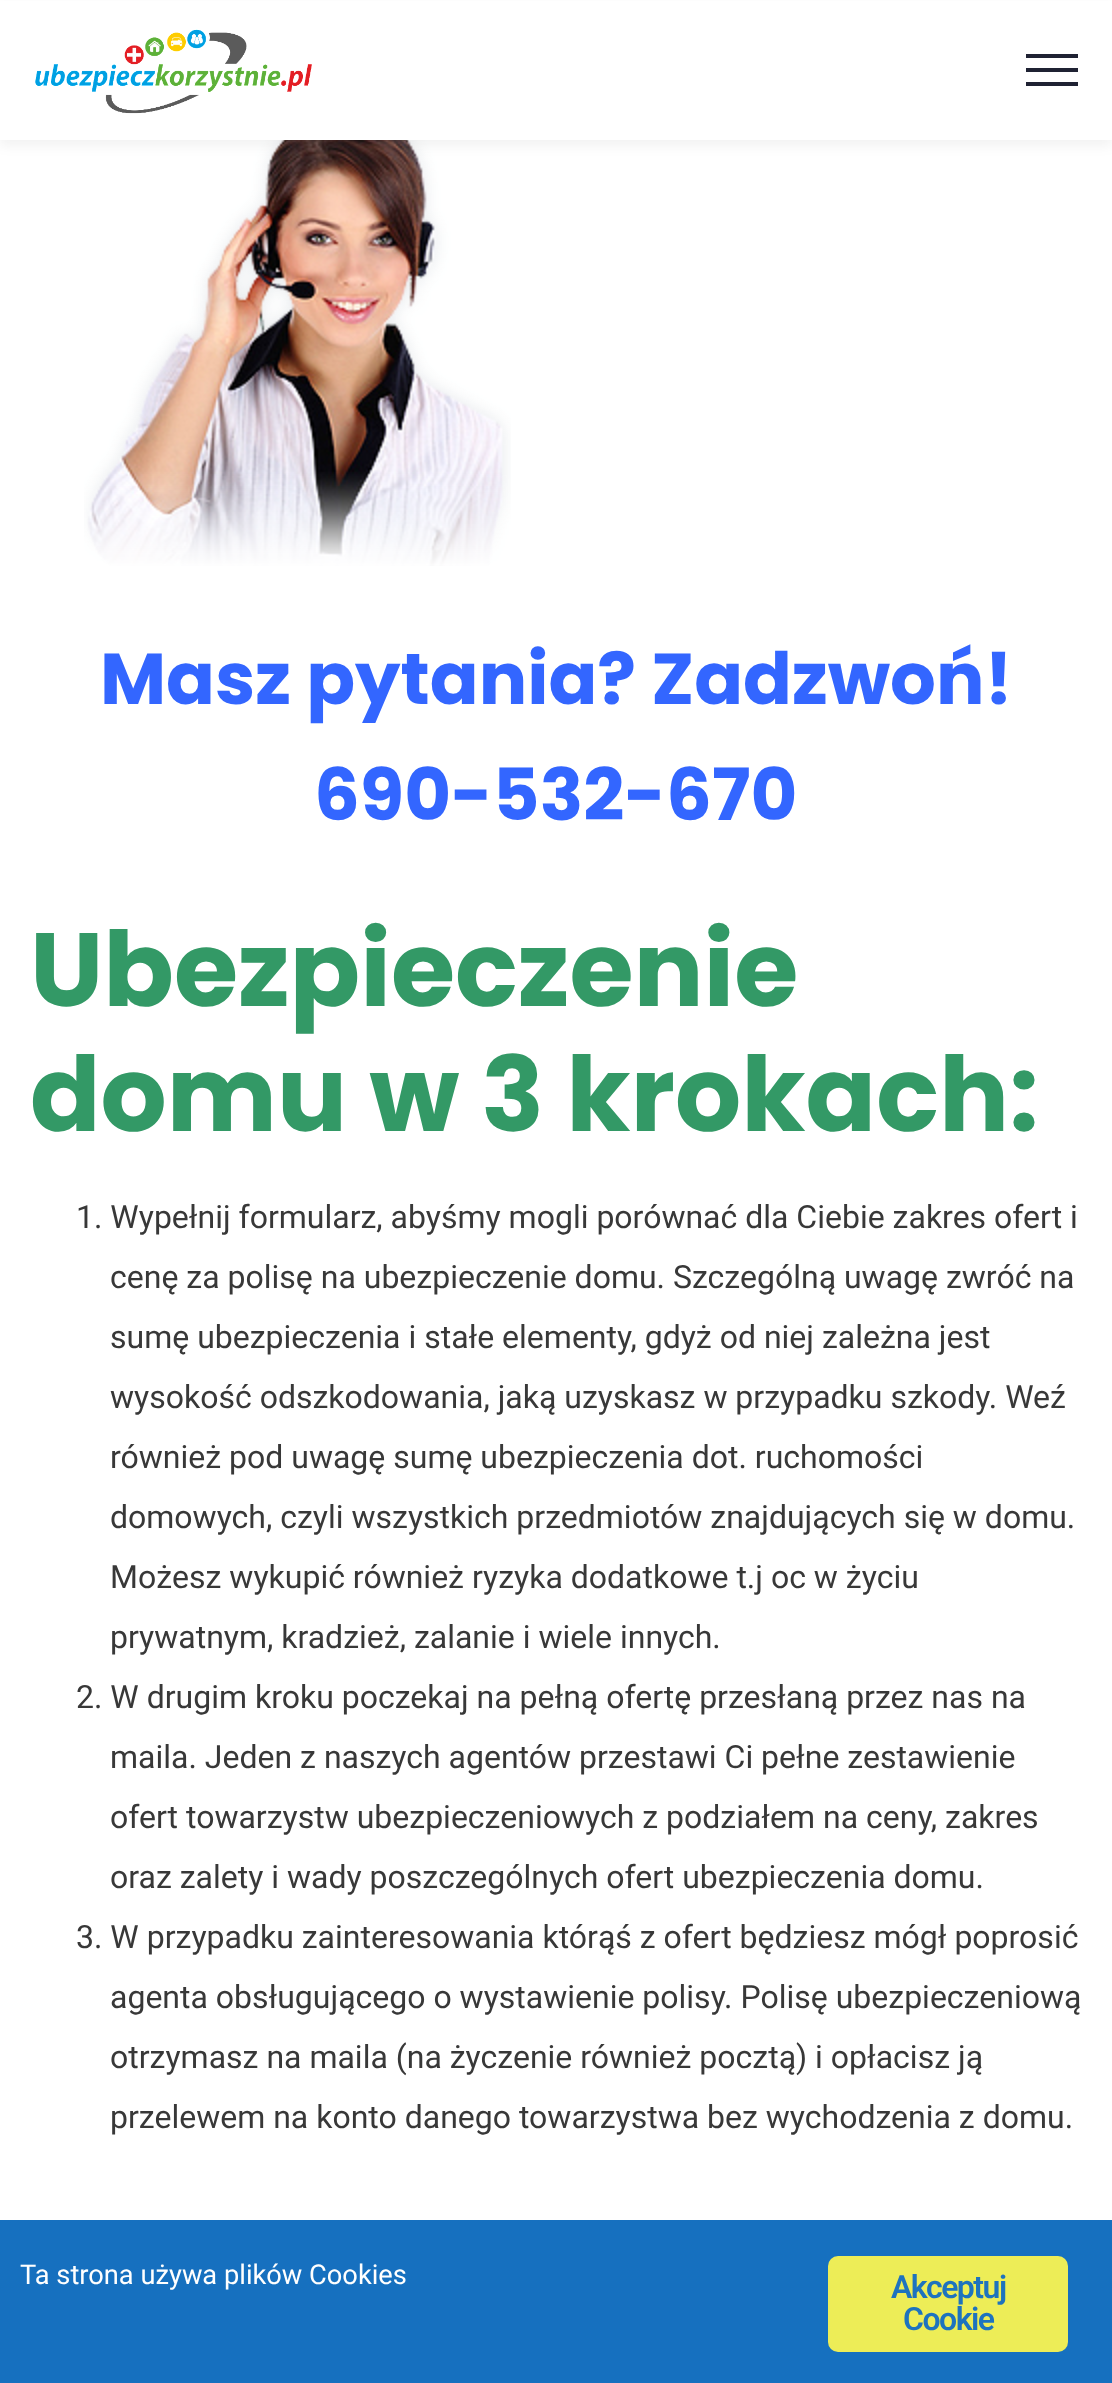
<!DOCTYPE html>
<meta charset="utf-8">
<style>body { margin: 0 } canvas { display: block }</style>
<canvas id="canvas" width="1112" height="2383"></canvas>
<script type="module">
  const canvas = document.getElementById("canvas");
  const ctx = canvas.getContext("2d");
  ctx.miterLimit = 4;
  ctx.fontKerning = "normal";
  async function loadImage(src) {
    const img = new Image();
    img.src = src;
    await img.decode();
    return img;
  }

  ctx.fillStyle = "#ffffff";
  ctx.fillRect(0, 0, 1112, 2383);
  ctx.drawImage(await loadImage("img2.png"), 84, 140, 427, 426);
  ctx.fillStyle = "rgba(0, 0, 0, 0.05)";
  ctx.filter = "blur(6px)";
  ctx.beginPath();
  ctx.rect(0, 6, 1112, 140);
  ctx.fill();
  ctx.filter = "none";
  ctx.fillStyle = "#ffffff";
  ctx.fillRect(0, 1, 1112, 139);
  ctx.drawImage(await loadImage("img1.png"), 35, 29, 277, 85);
  ctx.fillStyle = "#1f2233";
  ctx.fillRect(1026, 54, 52, 4);
  ctx.fillRect(1026, 68, 52, 4);
  ctx.fillRect(1026, 82, 52, 4);
  ctx.font = "bold 72px Poppins";
  ctx.fillStyle = "#3366ff";
  ctx.fillText("Masz pytania? Zadzwoń!", 100, 704);
  ctx.fillText("690-532-670", 314, 820);
  ctx.font = "bold 104px Poppins";
  ctx.fillStyle = "#339966";
  ctx.fillText("Ubezpieczenie", 30, 1006);
  ctx.fillText("domu w 3 krokach:", 30, 1131);
  ctx.font = "32px Roboto";
  ctx.fillStyle = "#383838";
  ctx.fillText("1. Wypełnij formularz, abyśmy mogli porównać dla Ciebie zakres ofert i", 76, 1228);
  ctx.fillText("cenę za polisę na ubezpieczenie domu. Szczególną uwagę zwróć na", 110, 1288);
  ctx.fillText("sumę ubezpieczenia i stałe elementy, gdyż od niej zależna jest", 110, 1348);
  ctx.fillText("wysokość odszkodowania, jaką uzyskasz w przypadku szkody. Weź", 110, 1408);
  ctx.fillText("również pod uwagę sumę ubezpieczenia dot. ruchomości", 110, 1468);
  ctx.fillText("domowych, czyli wszystkich przedmiotów znajdujących się w domu.", 110, 1528);
  ctx.fillText("Możesz wykupić również ryzyka dodatkowe t.j oc w życiu", 110, 1588);
  ctx.fillText("prywatnym, kradzież, zalanie i wiele innych.", 110, 1648);
  ctx.fillText("2. W drugim kroku poczekaj na pełną ofertę przesłaną przez nas na", 76, 1708);
  ctx.fillText("maila. Jeden z naszych agentów przestawi Ci pełne zestawienie", 110, 1768);
  ctx.fillText("ofert towarzystw ubezpieczeniowych z podziałem na ceny, zakres", 110, 1828);
  ctx.fillText("oraz zalety i wady poszczególnych ofert ubezpieczenia domu.", 110, 1888);
  ctx.fillText("3. W przypadku zainteresowania którąś z ofert będziesz mógł poprosić", 76, 1948);
  ctx.fillText("agenta obsługującego o wystawienie polisy. Polisę ubezpieczeniową", 110, 2008);
  ctx.fillText("otrzymasz na maila (na życzenie również pocztą) i opłacisz ją", 110, 2068);
  ctx.fillText("przelewem na konto danego towarzystwa bez wychodzenia z domu.", 110, 2128);
  ctx.fillStyle = "#1670bf";
  ctx.fillRect(0, 2220, 1112, 163);
  ctx.font = "27.25px Roboto";
  ctx.fillStyle = "#ffffff";
  ctx.fillText("Ta strona używa plików Cookies", 20, 2284);
  ctx.fillStyle = "#eded57";
  ctx.beginPath();
  ctx.roundRect(828, 2256, 240, 96, 10);
  ctx.fill();
  ctx.letterSpacing = "-1.5px";
  ctx.font = "600 32px Roboto";
  ctx.fillStyle = "#1e73be";
  ctx.fillText("Akceptuj", 891, 2298);
  ctx.fillText("Cookie", 903, 2330);
</script>
